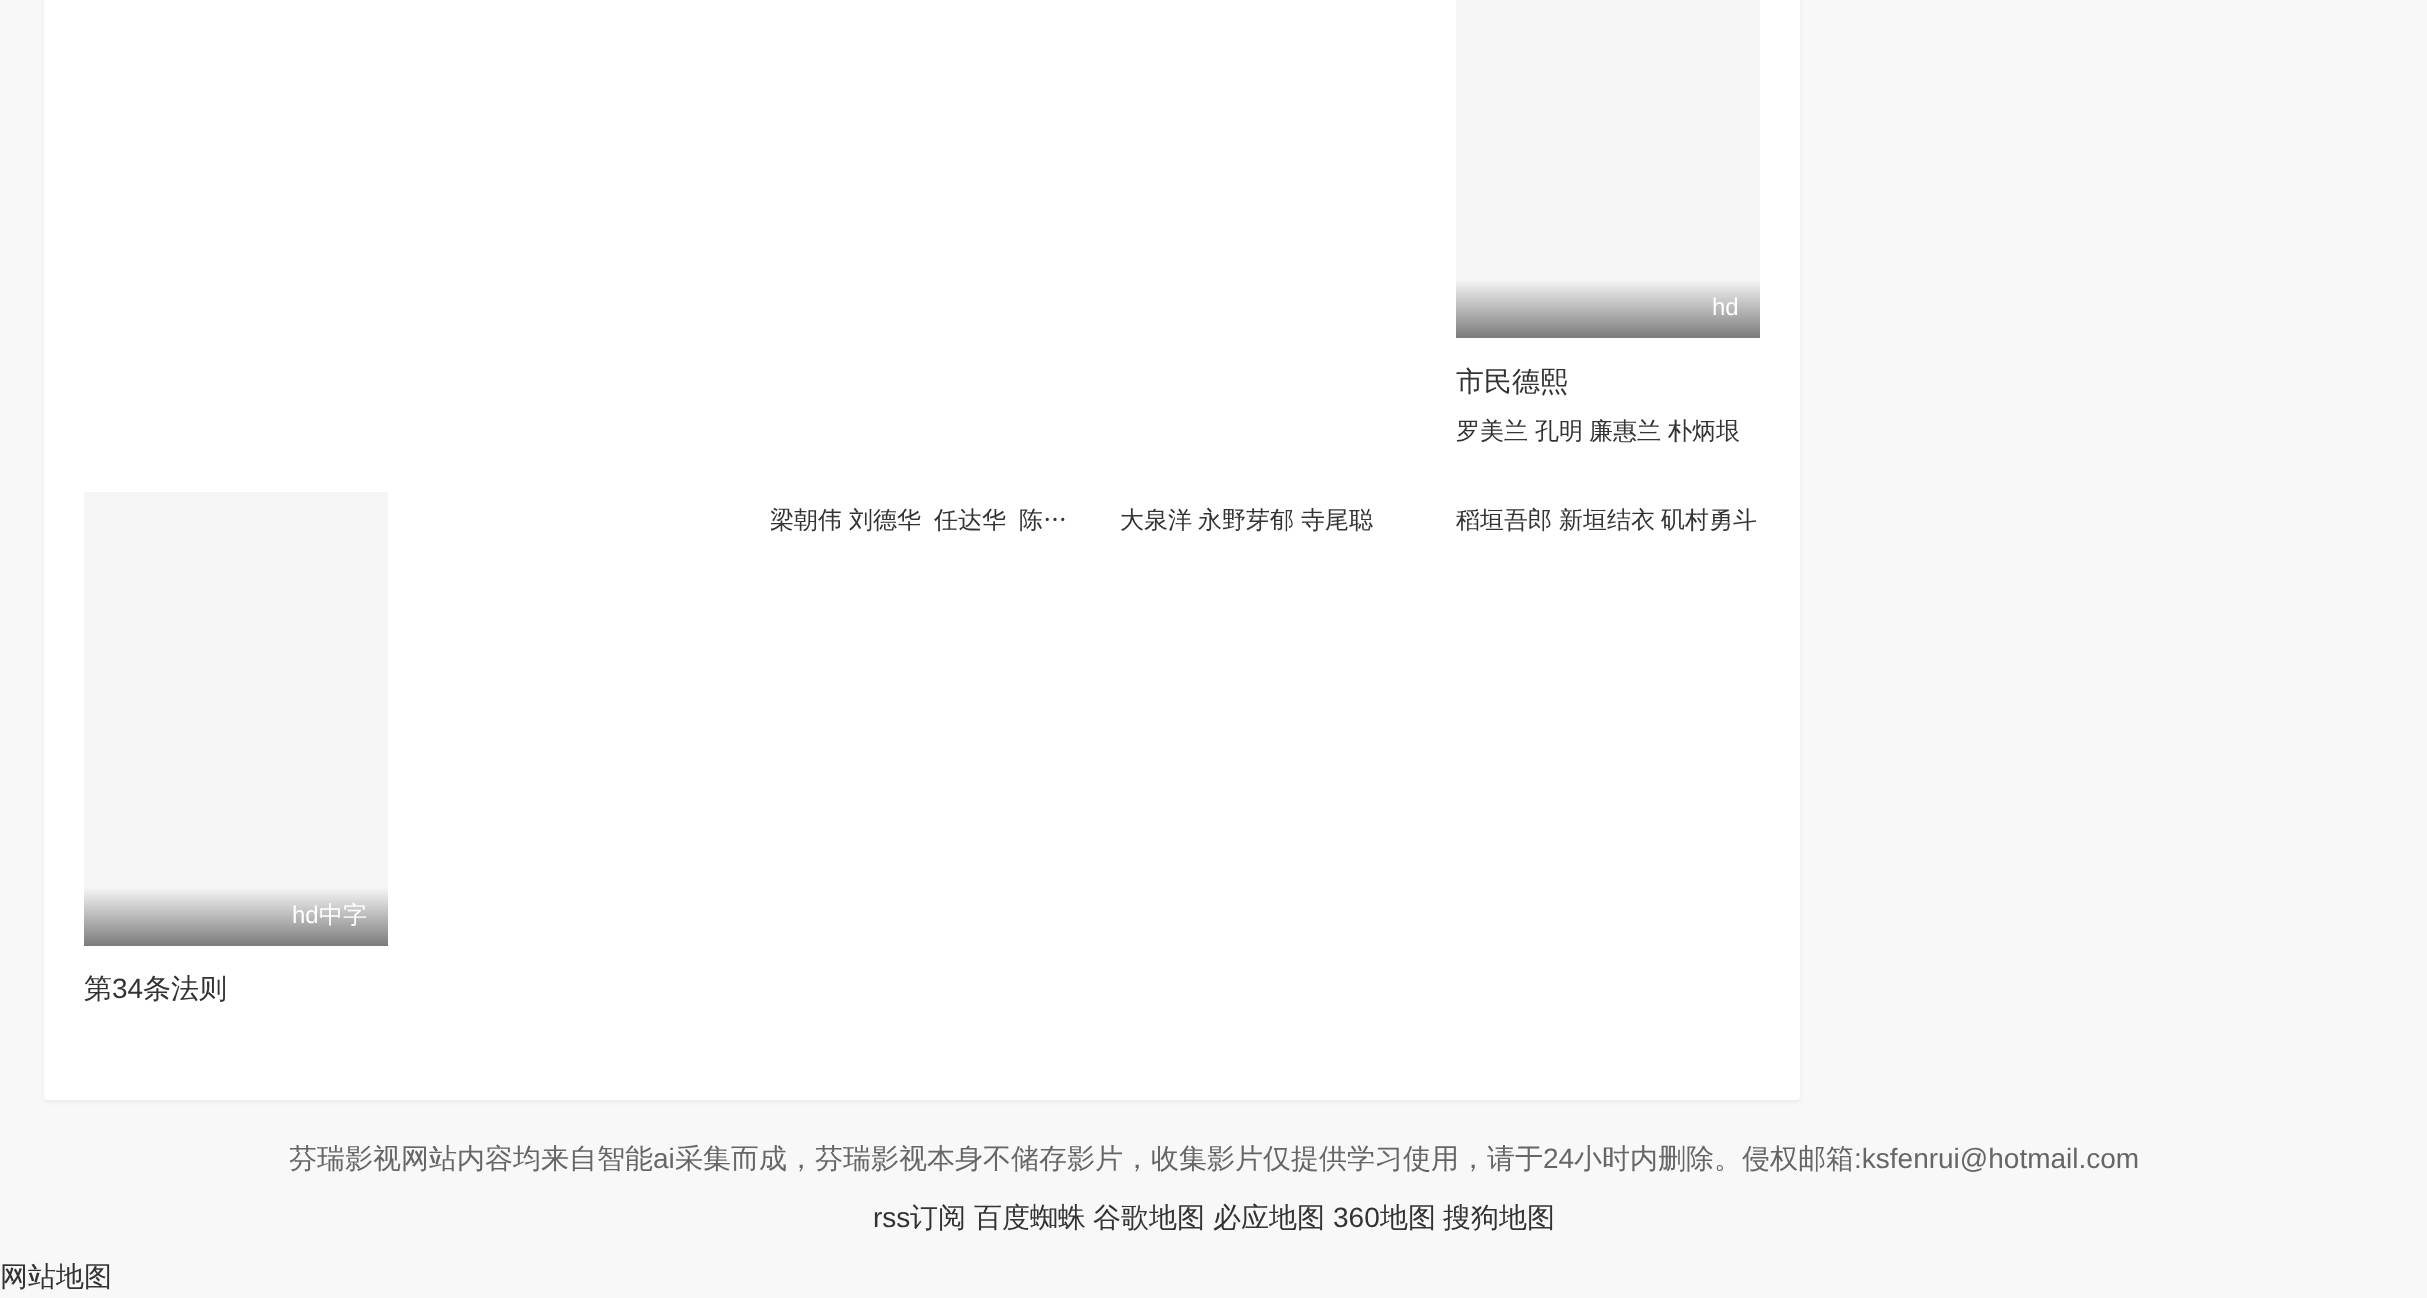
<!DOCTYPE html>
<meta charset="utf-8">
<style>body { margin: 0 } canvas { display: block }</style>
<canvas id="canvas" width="2427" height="1298"></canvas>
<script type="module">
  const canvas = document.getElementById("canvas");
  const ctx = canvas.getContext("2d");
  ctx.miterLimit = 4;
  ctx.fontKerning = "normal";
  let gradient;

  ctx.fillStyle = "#f8f8f8";
  ctx.fillRect(0, 0, 2427, 1298);
  ctx.fillStyle = "rgba(0, 0, 0, 0.05)";
  ctx.filter = "blur(2px)";
  ctx.beginPath();
  ctx.roundRect(44, -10, 1756, 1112, 4);
  ctx.fill();
  ctx.filter = "none";
  ctx.fillStyle = "#ffffff";
  ctx.beginPath();
  ctx.roundRect(44, -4, 1756, 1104, 4);
  ctx.fill();
  ctx.fillStyle = "#f5f5f5";
  ctx.fillRect(1456, 0, 304, 280);
  gradient = ctx.createLinearGradient(1608, 280, 1608, 338);
  gradient.addColorStop(0, "#f5f5f5");
  gradient.addColorStop(1, "#7b7b7b");
  ctx.fillStyle = gradient;
  ctx.fillRect(1456, 280, 304, 58);
  ctx.font = "24px Liberation Sans";
  ctx.fillStyle = "#ffffff";
  ctx.fillText("hd", 1712, 315);
  ctx.font = "500 28px WenQuanYi Zen Hei";
  ctx.fillStyle = "#333333";
  ctx.fillText("市民德熙", 1456, 391);
  ctx.font = "500 24px WenQuanYi Zen Hei";
  ctx.fillText("罗美兰", 1456, 439);
  ctx.fillText("孔明", 1535, 439);
  ctx.fillText("廉惠兰", 1589, 439);
  ctx.fillText("朴炳垠", 1668, 439);
  ctx.fillText("梁朝伟", 770, 528);
  ctx.fillText("刘德华", 849, 528);
  ctx.fillText("任达华", 934, 528);
  ctx.fillText("陈…", 1019, 528);
  ctx.fillText("大泉洋", 1120, 528);
  ctx.fillText("永野芽郁", 1198, 528);
  ctx.fillText("寺尾聪", 1301, 528);
  ctx.fillText("稻垣吾郎", 1456, 528);
  ctx.fillText("新垣结衣", 1559, 528);
  ctx.fillText("矶村勇斗", 1661, 528);
  ctx.fillStyle = "#f5f5f5";
  ctx.fillRect(84, 492, 304, 396);
  gradient = ctx.createLinearGradient(236, 888, 236, 946);
  gradient.addColorStop(0, "#f5f5f5");
  gradient.addColorStop(1, "#7b7b7b");
  ctx.fillStyle = gradient;
  ctx.fillRect(84, 888, 304, 58);
  ctx.font = "24px Liberation Sans";
  ctx.fillStyle = "#ffffff";
  ctx.fillText("hd", 292, 923);
  ctx.font = "500 24px WenQuanYi Zen Hei";
  ctx.fillText("中字", 319, 923);
  ctx.font = "500 28px WenQuanYi Zen Hei";
  ctx.fillStyle = "#333333";
  ctx.fillText("第", 84, 998);
  ctx.font = "28px Liberation Sans";
  ctx.fillText("34", 112, 998);
  ctx.font = "500 28px WenQuanYi Zen Hei";
  ctx.fillText("条法则", 143, 998);
  ctx.fillStyle = "#666666";
  ctx.fillText("芬瑞影视网站内容均来自智能", 289, 1168);
  ctx.font = "28px Liberation Sans";
  ctx.fillText("ai", 653, 1168);
  ctx.font = "500 28px WenQuanYi Zen Hei";
  ctx.fillText("采集而成，芬瑞影视本身不储存影片，收集影片仅提供学习使用，请于", 675, 1168);
  ctx.font = "28px Liberation Sans";
  ctx.fillText("24", 1543, 1168);
  ctx.font = "500 28px WenQuanYi Zen Hei";
  ctx.fillText("小时内删除。侵权邮箱", 1574, 1168);
  ctx.font = "28px Liberation Sans";
  ctx.fillText(":ksfenrui@hotmail.com", 1854, 1168);
  ctx.fillStyle = "#333333";
  ctx.fillText("rss", 873, 1227);
  ctx.font = "500 28px WenQuanYi Zen Hei";
  ctx.fillText("订阅", 910, 1227);
  ctx.fillText("百度蜘蛛", 974, 1227);
  ctx.fillText("谷歌地图", 1093, 1227);
  ctx.fillText("必应地图", 1213, 1227);
  ctx.font = "28px Liberation Sans";
  ctx.fillText("360", 1333, 1227);
  ctx.font = "500 28px WenQuanYi Zen Hei";
  ctx.fillText("地图", 1380, 1227);
  ctx.fillText("搜狗地图", 1443, 1227);
  ctx.fillText("网站地图", 0, 1286);
</script>
